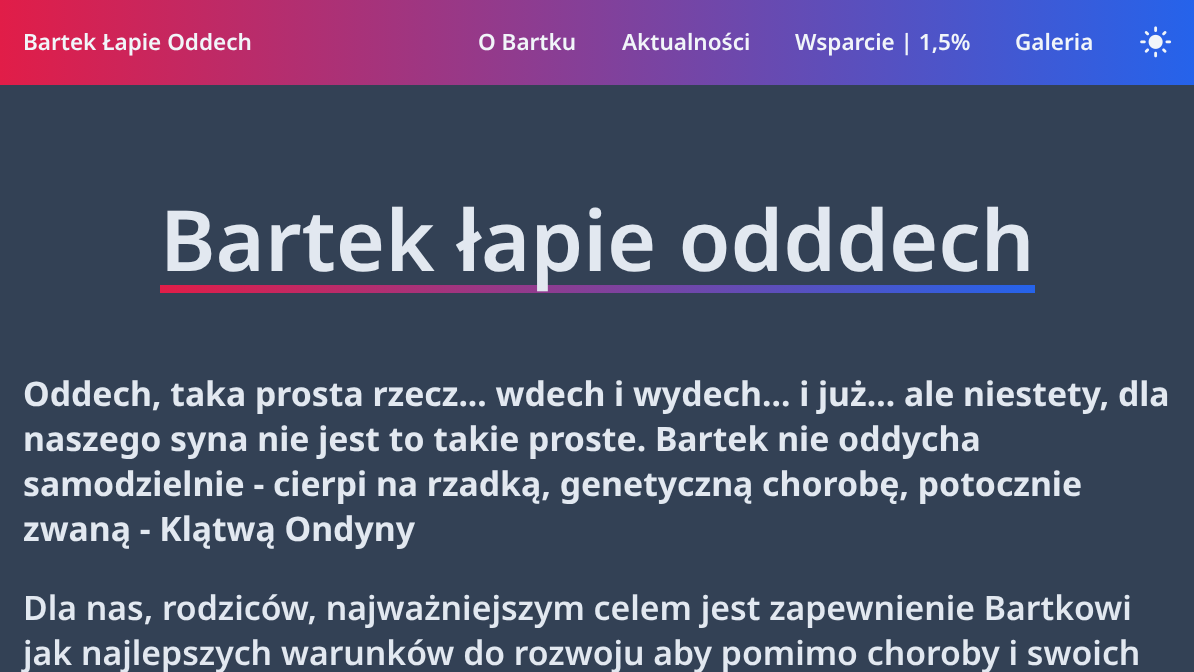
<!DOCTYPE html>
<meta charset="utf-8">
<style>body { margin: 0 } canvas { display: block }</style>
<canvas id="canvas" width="1194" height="672"></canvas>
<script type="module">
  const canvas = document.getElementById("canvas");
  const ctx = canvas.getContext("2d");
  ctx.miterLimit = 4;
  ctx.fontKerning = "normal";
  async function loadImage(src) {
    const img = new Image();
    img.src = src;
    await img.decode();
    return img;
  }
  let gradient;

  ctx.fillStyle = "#334155";
  ctx.fillRect(0, 0, 1194, 672);
  gradient = ctx.createLinearGradient(0, 43, 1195, 42);
  gradient.addColorStop(0, "#e11d48");
  gradient.addColorStop(1, "#2563eb");
  ctx.fillStyle = gradient;
  ctx.fillRect(0, 0, 1194, 85);
  ctx.font = "600 22.5px Noto Sans";
  ctx.fillStyle = "#f1f5f9";
  ctx.fillText("Bartek Łapie Oddech", 23, 50);
  ctx.fillText("O Bartku", 478, 50);
  ctx.fillText("Aktualności", 622, 50);
  ctx.fillText("Wsparcie | 1,5%", 795, 50);
  ctx.fillText("Galeria", 1015, 50);
  ctx.drawImage(await loadImage("img1.png"), 1140, 26, 32, 32);
  gradient = ctx.createLinearGradient(160, 289, 1035, 289);
  gradient.addColorStop(0, "#e11d48");
  gradient.addColorStop(1, "#2563eb");
  ctx.fillStyle = gradient;
  ctx.fillRect(160, 285, 875, 8);
  ctx.font = "600 84.4px Noto Sans";
  ctx.fillStyle = "#e2e8f0";
  ctx.fillText("Bartek łapie odddech", 160, 271);
  ctx.font = "bold 33.75px Noto Sans";
  ctx.fillText("Oddech, taka prosta rzecz... wdech i wydech... i już... ale niestety, dla", 23, 406);
  ctx.fillText("naszego syna nie jest to takie proste. Bartek nie oddycha", 23, 451);
  ctx.fillText("samodzielnie - cierpi na rzadką, genetyczną chorobę, potocznie", 23, 496);
  ctx.fillText("zwaną - Klątwą Ondyny", 23, 541);
  ctx.font = "600 33.75px Noto Sans";
  ctx.fillText("Dla nas, rodziców, najważniejszym celem jest zapewnienie Bartkowi", 23, 620);
  ctx.fillText("jak najlepszych warunków do rozwoju aby pomimo choroby i swoich", 23, 665);
</script>
